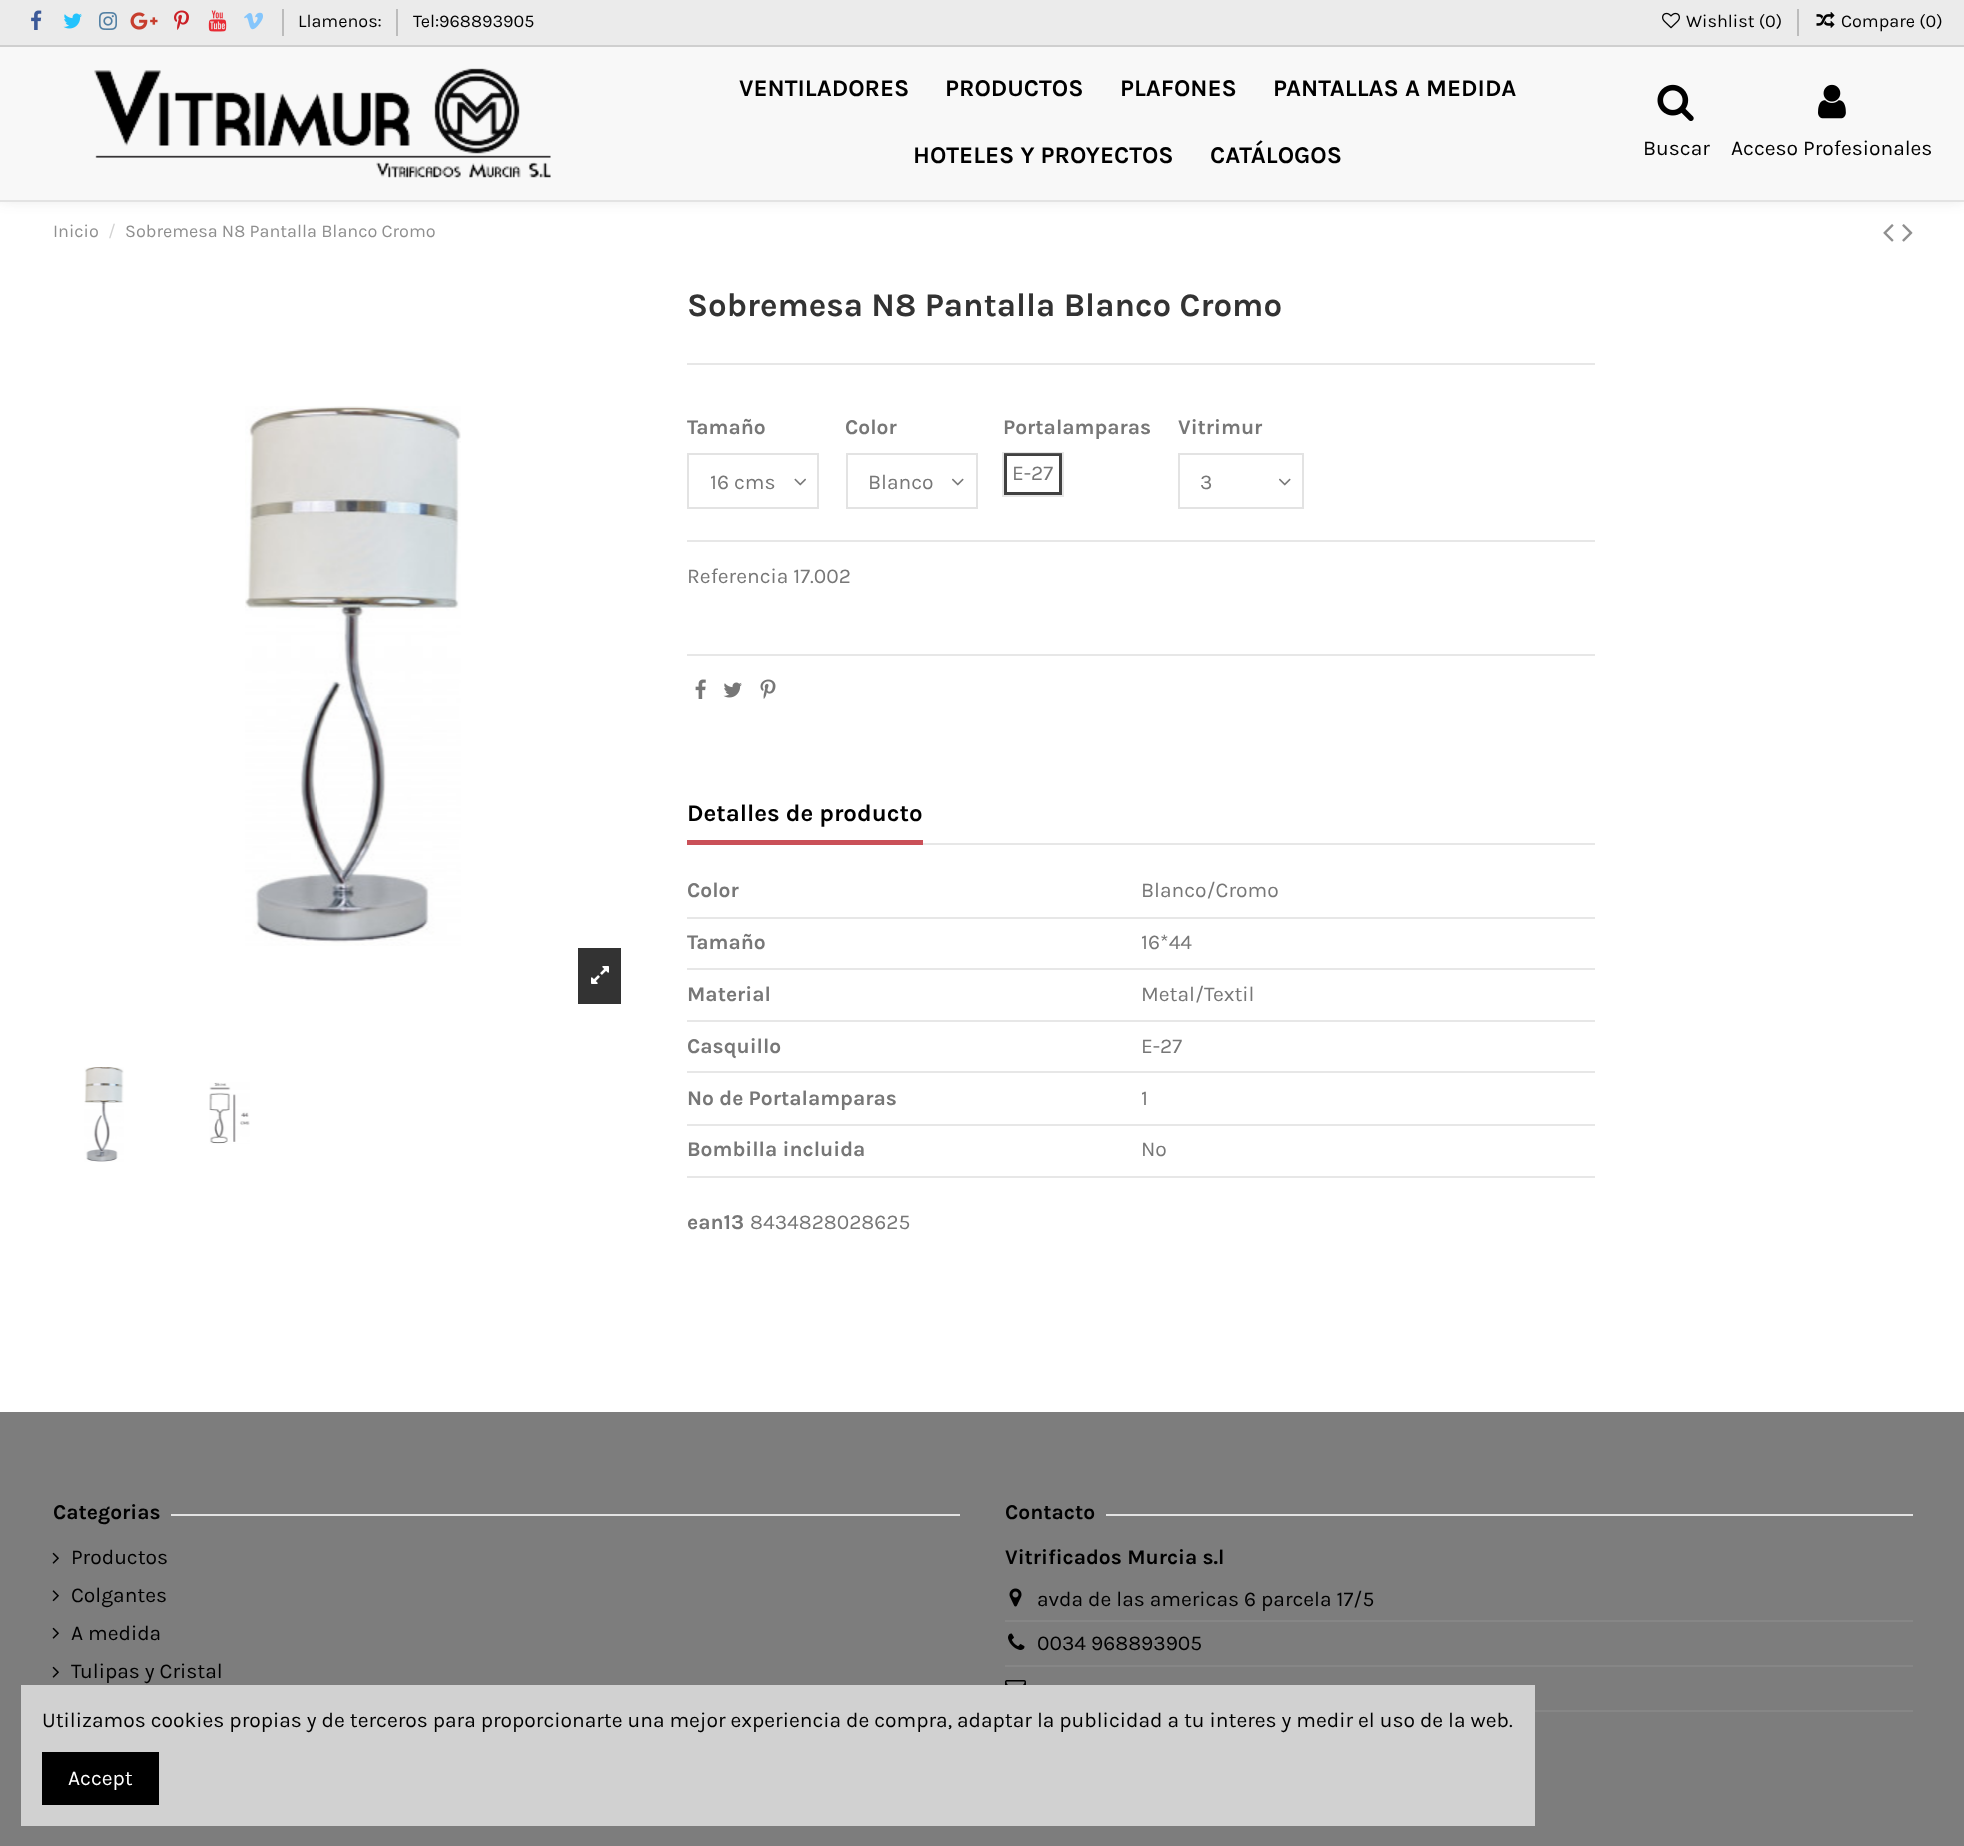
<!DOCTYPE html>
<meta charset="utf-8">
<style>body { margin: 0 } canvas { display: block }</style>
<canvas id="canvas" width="1964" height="1846"></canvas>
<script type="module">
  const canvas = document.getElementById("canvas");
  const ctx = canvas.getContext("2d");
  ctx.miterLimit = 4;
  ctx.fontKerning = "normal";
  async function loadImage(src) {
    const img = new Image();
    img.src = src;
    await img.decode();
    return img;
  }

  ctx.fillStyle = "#ffffff";
  ctx.fillRect(0, 0, 1964, 1846);
  ctx.fillStyle = "rgba(61, 57, 57, 0.17)";
  ctx.filter = "blur(8px)";
  ctx.beginPath();
  ctx.rect(0, -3, 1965, 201);
  ctx.fill();
  ctx.filter = "none";
  ctx.fillStyle = "#f8f8f8";
  ctx.fillRect(0, 47, 1964, 153);
  ctx.fillStyle = "#e3e3e3";
  ctx.fillRect(0, 200, 1964, 2);
  ctx.fillStyle = "#ebebeb";
  ctx.fillRect(0, 0, 1964, 45);
  ctx.fillStyle = "#cfcfcf";
  ctx.fillRect(0, 45, 1964, 2);
  ctx.drawImage(await loadImage("img1.png"), 31, 10, 11, 20);
  ctx.drawImage(await loadImage("img2.png"), 63, 13, 19, 16);
  ctx.drawImage(await loadImage("img3.png"), 99, 12, 18, 18);
  ctx.drawImage(await loadImage("img4.png"), 130, 12, 28, 18);
  ctx.drawImage(await loadImage("img5.png"), 174, 10, 15, 20);
  ctx.drawImage(await loadImage("img6.png"), 208, 10, 19, 22);
  ctx.drawImage(await loadImage("img7.png"), 244, 12, 19, 18);
  ctx.fillStyle = "#bcbcbc";
  ctx.fillRect(282, 9, 2, 27);
  ctx.font = "18px Karla";
  ctx.fillStyle = "#000000";
  ctx.fillText("Llamenos:", 298, 27);
  ctx.fillStyle = "#bcbcbc";
  ctx.fillRect(396, 9, 2, 27);
  ctx.fillStyle = "#000000";
  ctx.fillText("Tel:968893905", 413, 27);
  ctx.drawImage(await loadImage("img8.png"), 1662, 12, 18, 17);
  ctx.fillText("Wishlist (0)", 1686, 27);
  ctx.fillStyle = "#bcbcbc";
  ctx.fillRect(1797, 9, 2, 27);
  ctx.drawImage(await loadImage("img9.png"), 1816, 12, 19, 16);
  ctx.fillStyle = "#000000";
  ctx.fillText("Compare (0)", 1841, 27);
  ctx.drawImage(await loadImage("img10.png"), 94, 68, 457, 110);
  ctx.font = "bold 24px Karla";
  ctx.fillText("VENTILADORES", 739, 96);
  ctx.fillText("PRODUCTOS", 945, 96);
  ctx.fillText("PLAFONES", 1120, 96);
  ctx.fillText("PANTALLAS A MEDIDA", 1273, 96);
  ctx.fillText("HOTELES Y PROYECTOS", 913, 163);
  ctx.fillText("CATÁLOGOS", 1210, 163);
  ctx.drawImage(await loadImage("img11.png"), 1657, 84, 37, 37);
  ctx.font = "21px Karla";
  ctx.fillText("Buscar", 1643, 155);
  ctx.drawImage(await loadImage("img12.png"), 1818, 84, 28, 35);
  ctx.fillText("Acceso Profesionales", 1731, 155);
  ctx.font = "18px Karla";
  ctx.fillStyle = "#8f8f8f";
  ctx.fillText("Inicio", 53, 237);
  ctx.fillStyle = "#d2d2d2";
  ctx.fillText("/", 108, 237);
  ctx.fillStyle = "#8f8f8f";
  ctx.fillText("Sobremesa N8 Pantalla Blanco Cromo", 125, 237);
  ctx.drawImage(await loadImage("img13.png"), 1883, 224, 11, 18);
  ctx.drawImage(await loadImage("img14.png"), 1902, 224, 11, 18);
  ctx.drawImage(await loadImage("img15.png"), 245, 406, 216, 540);
  ctx.fillStyle = "#333333";
  ctx.fillRect(578, 948, 43, 56);
  ctx.drawImage(await loadImage("img16.png"), 591, 966, 18, 18);
  ctx.drawImage(await loadImage("img17.png"), 84, 1067, 40, 95);
  ctx.drawImage(await loadImage("img18.png"), 209, 1082, 41, 62);
  ctx.fillStyle = "#e7e7e7";
  ctx.fillRect(687, 363, 908, 2);
  ctx.font = "bold 33px Karla";
  ctx.fillStyle = "#333333";
  ctx.fillText("Sobremesa N8 Pantalla Blanco Cromo", 687, 316);
  ctx.font = "bold 21px Karla";
  ctx.fillStyle = "#777777";
  ctx.fillText("Tamaño", 687, 434);
  ctx.drawImage(await loadImage("img19.png"), 794, 478, 12, 8);
  ctx.strokeStyle = "#e3e3e3";
  ctx.lineWidth = 2;
  ctx.strokeRect(688, 454, 130, 54);
  ctx.font = "21px Karla";
  ctx.fillText("16 cms", 710, 489);
  ctx.font = "bold 21px Karla";
  ctx.fillText("Color", 845, 434);
  ctx.drawImage(await loadImage("img20.png"), 952, 478, 12, 8);
  ctx.strokeRect(847, 454, 130, 54);
  ctx.font = "21px Karla";
  ctx.fillText("Blanco", 868, 489);
  ctx.font = "bold 21px Karla";
  ctx.fillText("Portalamparas", 1003, 434);
  ctx.strokeStyle = "#414141";
  ctx.lineWidth = 3;
  ctx.strokeRect(1005.5, 454.5, 55, 39);
  ctx.strokeStyle = "rgba(160, 160, 160, 0.25)";
  ctx.lineWidth = 2;
  ctx.strokeRect(1003, 453, 60, 43);
  ctx.font = "21px Karla";
  ctx.fillText("E-27", 1012, 480);
  ctx.font = "bold 21px Karla";
  ctx.fillText("Vitrimur", 1178, 434);
  ctx.drawImage(await loadImage("img20.png"), 1279, 478, 12, 8);
  ctx.strokeStyle = "#e3e3e3";
  ctx.strokeRect(1179, 454, 124, 54);
  ctx.font = "21px Karla";
  ctx.fillText("3", 1200, 489);
  ctx.fillStyle = "#e7e7e7";
  ctx.fillRect(687, 540, 908, 2);
  ctx.fillStyle = "#777777";
  ctx.fillText("Referencia 17.002", 687, 583);
  ctx.fillStyle = "#e7e7e7";
  ctx.fillRect(687, 654, 908, 2);
  ctx.drawImage(await loadImage("img21.png"), 695, 679, 11, 20);
  ctx.drawImage(await loadImage("img22.png"), 723, 682, 19, 16);
  ctx.drawImage(await loadImage("img23.png"), 760, 679, 16, 20);
  ctx.fillRect(923, 843, 672, 2);
  ctx.fillStyle = "#ca5058";
  ctx.fillRect(687, 840, 236, 5);
  ctx.font = "bold 24px Karla";
  ctx.fillStyle = "#000000";
  ctx.fillText("Detalles de producto", 687, 821);
  ctx.fillStyle = "#e7e7e7";
  ctx.fillRect(687, 917, 908, 2);
  ctx.font = "bold 21px Karla";
  ctx.fillStyle = "#777777";
  ctx.fillText("Color", 687, 897);
  ctx.font = "21px Karla";
  ctx.fillText("Blanco/Cromo", 1141, 897);
  ctx.fillStyle = "#e7e7e7";
  ctx.fillRect(687, 968, 908, 2);
  ctx.font = "bold 21px Karla";
  ctx.fillStyle = "#777777";
  ctx.fillText("Tamaño", 687, 949);
  ctx.font = "21px Karla";
  ctx.fillText("16*44", 1141, 949);
  ctx.fillStyle = "#e7e7e7";
  ctx.fillRect(687, 1020, 908, 2);
  ctx.font = "bold 21px Karla";
  ctx.fillStyle = "#777777";
  ctx.fillText("Material", 687, 1001);
  ctx.font = "21px Karla";
  ctx.fillText("Metal/Textil", 1141, 1001);
  ctx.fillStyle = "#e7e7e7";
  ctx.fillRect(687, 1071, 908, 2);
  ctx.font = "bold 21px Karla";
  ctx.fillStyle = "#777777";
  ctx.fillText("Casquillo", 687, 1053);
  ctx.font = "21px Karla";
  ctx.fillText("E-27", 1141, 1053);
  ctx.fillStyle = "#e7e7e7";
  ctx.fillRect(687, 1124, 908, 2);
  ctx.font = "bold 21px Karla";
  ctx.fillStyle = "#777777";
  ctx.fillText("Nº de Portalamparas", 687, 1105);
  ctx.font = "21px Karla";
  ctx.fillText("1", 1141, 1105);
  ctx.fillStyle = "#e7e7e7";
  ctx.fillRect(687, 1176, 908, 2);
  ctx.font = "bold 21px Karla";
  ctx.fillStyle = "#777777";
  ctx.fillText("Bombilla incluida", 687, 1156);
  ctx.font = "21px Karla";
  ctx.fillText("No", 1141, 1156);
  ctx.font = "bold 21px Karla";
  ctx.fillText("ean13", 687, 1229);
  ctx.font = "21px Karla";
  ctx.fillText("8434828028625", 750, 1229);
  ctx.fillStyle = "#7d7d7d";
  ctx.fillRect(0, 1412, 1964, 434);
  ctx.font = "bold 21px Karla";
  ctx.fillStyle = "#000000";
  ctx.fillText("Categorias", 53, 1519);
  ctx.fillStyle = "#e3e3e3";
  ctx.fillRect(171, 1514, 789, 2);
  ctx.drawImage(await loadImage("img24.png"), 52, 1552, 7, 12);
  ctx.font = "21px Karla";
  ctx.fillStyle = "#000000";
  ctx.fillText("Productos", 71, 1564);
  ctx.drawImage(await loadImage("img25.png"), 52, 1590, 7, 12);
  ctx.fillText("Colgantes", 71, 1602);
  ctx.drawImage(await loadImage("img24.png"), 52, 1627, 7, 12);
  ctx.fillText("A medida", 71, 1640);
  ctx.drawImage(await loadImage("img24.png"), 52, 1666, 7, 12);
  ctx.fillText("Tulipas y Cristal", 71, 1678);
  ctx.font = "bold 21px Karla";
  ctx.fillText("Contacto", 1005, 1519);
  ctx.fillStyle = "#e3e3e3";
  ctx.fillRect(1106, 1514, 807, 2);
  ctx.fillStyle = "#000000";
  ctx.fillText("Vitrificados Murcia s.l", 1005, 1564);
  ctx.drawImage(await loadImage("img26.png"), 1009, 1588, 13, 19);
  ctx.font = "21px Karla";
  ctx.fillText("avda de las americas 6 parcela 17/5", 1037, 1606);
  ctx.fillStyle = "#868686";
  ctx.fillRect(1005, 1620, 908, 2);
  ctx.drawImage(await loadImage("img27.png"), 1008, 1633, 17, 17);
  ctx.fillStyle = "#000000";
  ctx.fillText("0034 968893905", 1037, 1650);
  ctx.fillStyle = "#868686";
  ctx.fillRect(1005, 1665, 908, 2);
  ctx.drawImage(await loadImage("img28.png"), 1005, 1680, 21, 5);
  ctx.fillRect(1535, 1710, 378, 2);
  ctx.fillStyle = "#d1d1d1";
  ctx.fillRect(21, 1685, 1514, 141);
  ctx.fillStyle = "#000000";
  ctx.fillText("Utilizamos cookies propias y de terceros para proporcionarte una mejor experiencia de compra, adaptar la publicidad a tu interes y medir el uso de la web.", 42, 1727);
  ctx.fillRect(42, 1752, 117, 53);
  ctx.fillStyle = "#ffffff";
  ctx.fillText("Accept", 68, 1785);
</script>
